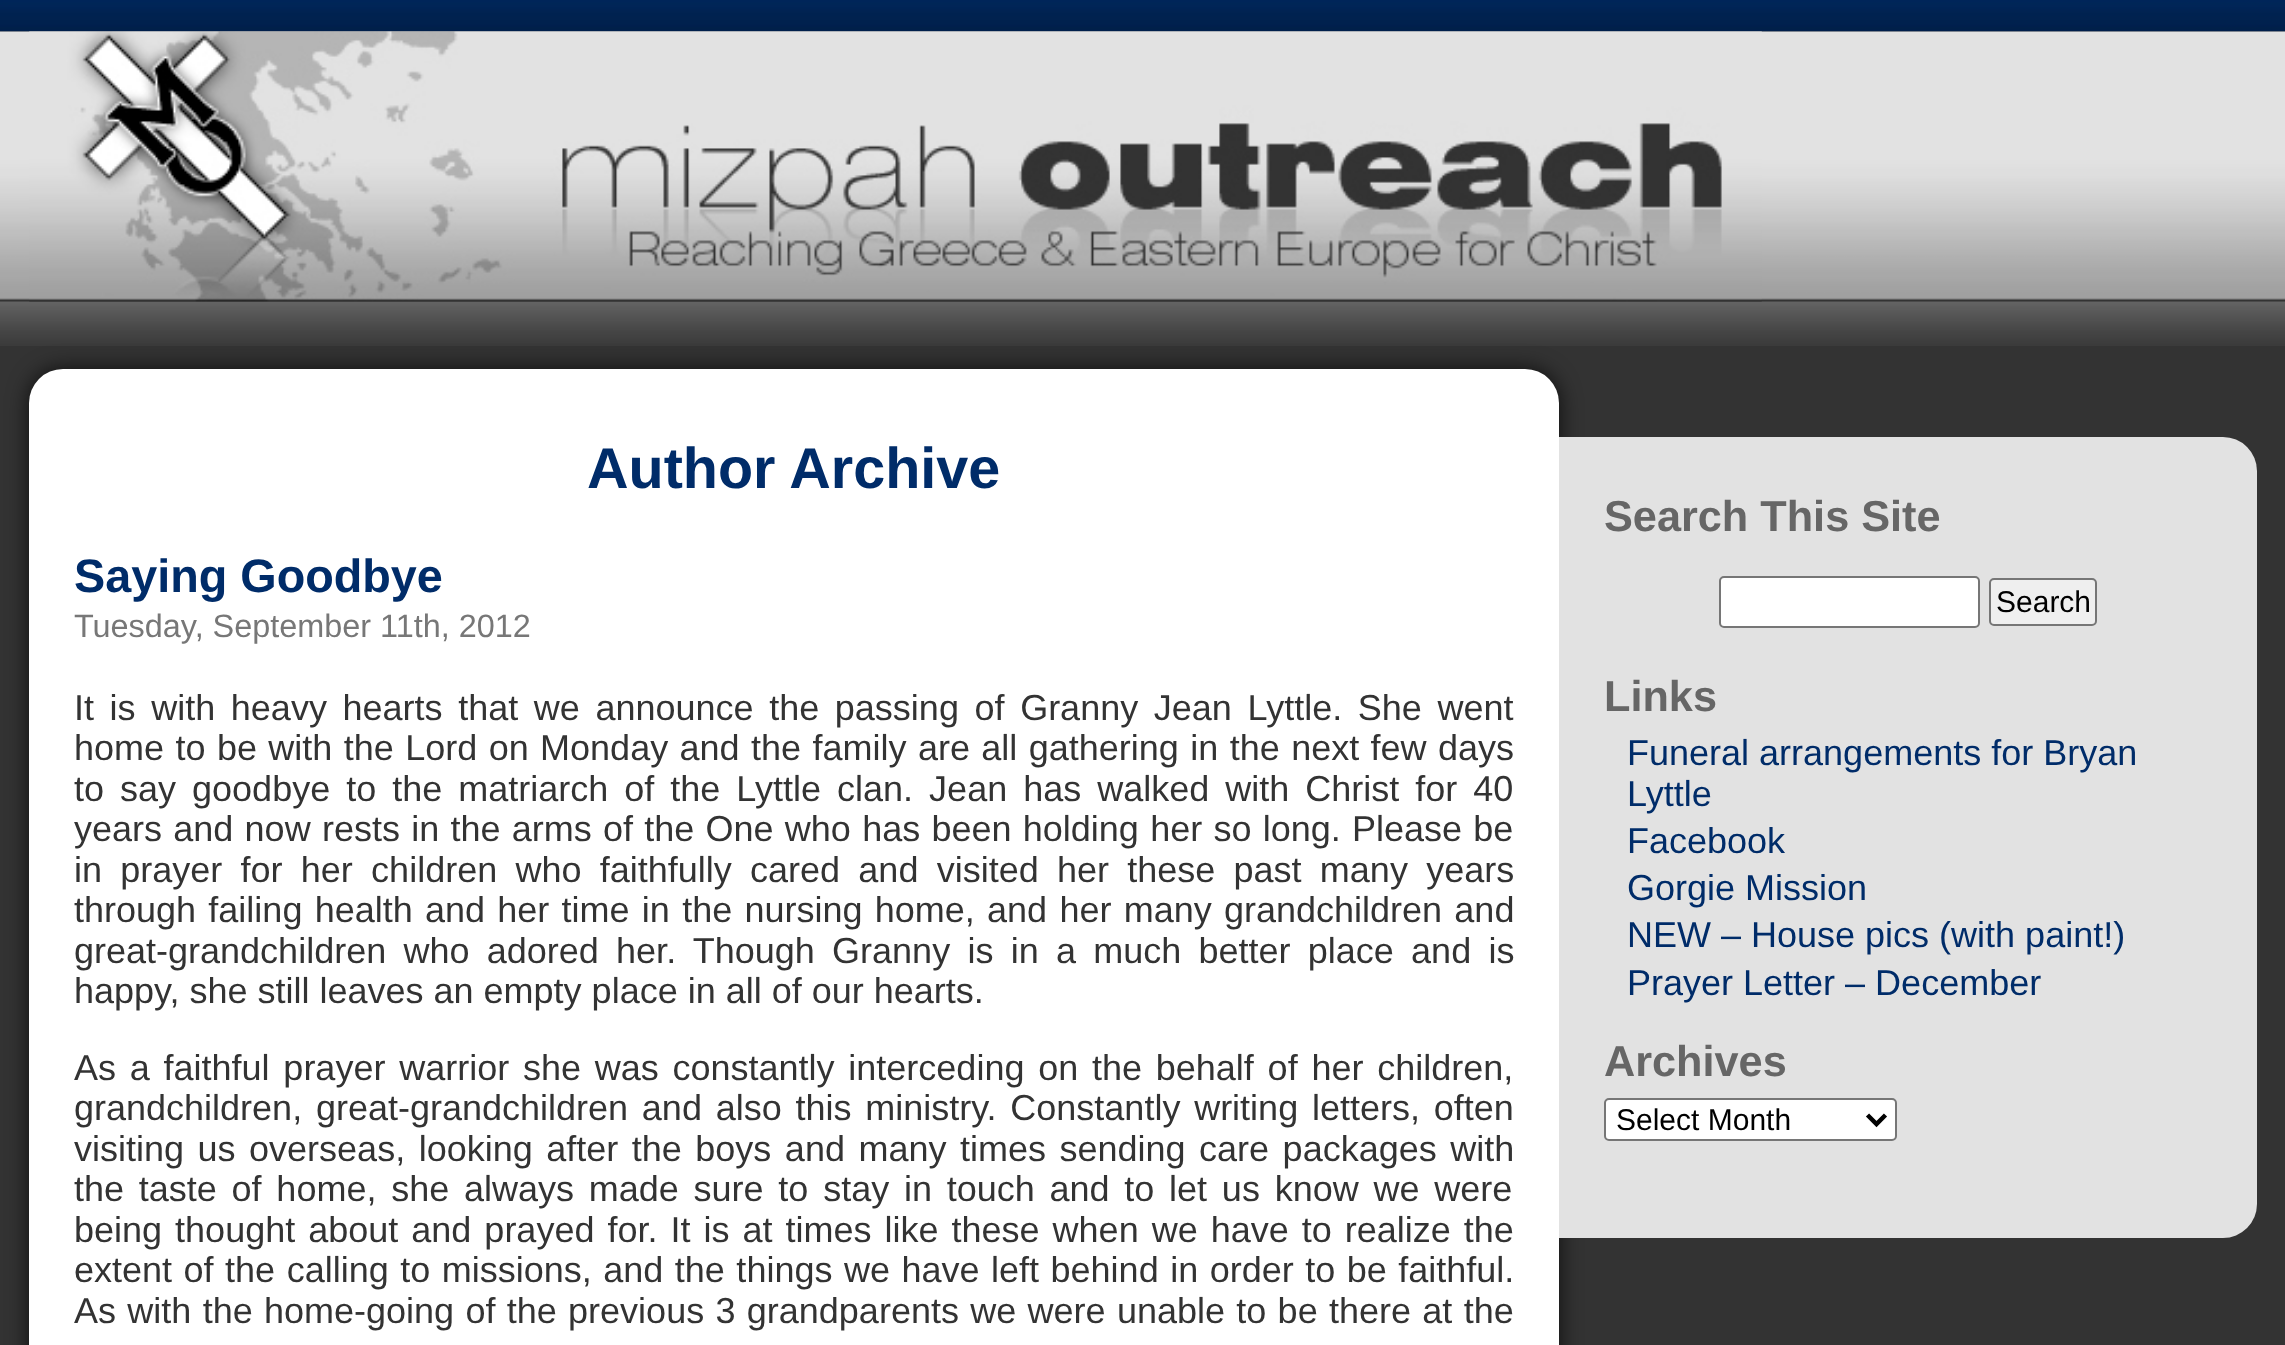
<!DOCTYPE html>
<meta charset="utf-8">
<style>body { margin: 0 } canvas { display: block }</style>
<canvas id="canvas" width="2285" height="1345"></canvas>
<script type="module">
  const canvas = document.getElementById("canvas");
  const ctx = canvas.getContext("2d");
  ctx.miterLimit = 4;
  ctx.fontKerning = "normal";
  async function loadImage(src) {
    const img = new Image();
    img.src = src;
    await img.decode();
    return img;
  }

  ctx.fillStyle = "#333333";
  ctx.fillRect(0, 0, 2285, 1345);
  ctx.drawImage(await loadImage("img1.png"), 0, 0, 2285, 32);
  ctx.drawImage(await loadImage("img2.png"), 0, 31, 2285, 269);
  ctx.drawImage(await loadImage("img4.png"), 0, 301, 2285, 45);
  ctx.drawImage(await loadImage("img3.png"), 29, 31, 1733, 271);
  ctx.fillStyle = "rgba(0, 0, 0, 0.75)";
  ctx.filter = "blur(11px)";
  ctx.beginPath();
  ctx.roundRect(29, 369, 1530, 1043, 34);
  ctx.fill();
  ctx.filter = "none";
  ctx.fillStyle = "#ffffff";
  ctx.beginPath();
  ctx.roundRect(29, 369, 1530, 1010, 34);
  ctx.fill();
  ctx.font = "bold 57.5px Liberation Sans";
  ctx.fillStyle = "#002c69";
  ctx.fillText("Author Archive", 587, 488);
  ctx.font = "bold 46.75px Liberation Sans";
  ctx.fillText("Saying Goodbye", 74, 592);
  ctx.font = "32.4px Liberation Sans";
  ctx.fillStyle = "#777777";
  ctx.fillText("Tuesday, September 11th, 2012", 74, 637);
  ctx.wordSpacing = "5.6px";
  ctx.font = "36px Liberation Sans";
  ctx.fillStyle = "#333333";
  ctx.fillText("It is with heavy hearts that we announce the passing of Granny Jean Lyttle. She went", 74, 720);
  ctx.wordSpacing = "1.4px";
  ctx.fillText("home to be with the Lord on Monday and the family are all gathering in the next few days", 74, 760);
  ctx.wordSpacing = "6px";
  ctx.fillText("to say goodbye to the matriarch of the Lyttle clan. Jean has walked with Christ for 40", 74, 801);
  ctx.wordSpacing = "1.25px";
  ctx.fillText("years and now rests in the arms of the One who has been holding her so long. Please be", 74, 841);
  ctx.wordSpacing = "8.25px";
  ctx.fillText("in prayer for her children who faithfully cared and visited her these past many years", 74, 882);
  ctx.wordSpacing = "2.25px";
  ctx.fillText("through failing health and her time in the nursing home, and her many grandchildren and", 74, 922);
  ctx.wordSpacing = "7.25px";
  ctx.fillText("great-grandchildren who adored her. Though Granny is in a much better place and is", 74, 963);
  ctx.wordSpacing = "0px";
  ctx.fillText("happy, she still leaves an empty place in all of our hearts.", 74, 1003);
  ctx.wordSpacing = "3.75px";
  ctx.fillText("As a faithful prayer warrior she was constantly interceding on the behalf of her children,", 74, 1080);
  ctx.fillText("grandchildren, great-grandchildren and also this ministry. Constantly writing letters, often", 74, 1120);
  ctx.wordSpacing = "3.5px";
  ctx.fillText("visiting us overseas, looking after the boys and many times sending care packages with", 74, 1161);
  ctx.wordSpacing = "4.75px";
  ctx.fillText("the taste of home, she always made sure to stay in touch and to let us know we were", 74, 1201);
  ctx.wordSpacing = "3px";
  ctx.fillText("being thought about and prayed for. It is at times like these when we have to realize the", 74, 1242);
  ctx.wordSpacing = "1.5px";
  ctx.fillText("extent of the calling to missions, and the things we have left behind in order to be faithful.", 74, 1282);
  ctx.wordSpacing = "1.3px";
  ctx.fillText("As with the home-going of the previous 3 grandparents we were unable to be there at the", 74, 1323);
  ctx.fillStyle = "#e2e2e2";
  ctx.beginPath();
  ctx.roundRect(1559, 437, 698, 801, [0, 34, 34, 0]);
  ctx.fill();
  ctx.wordSpacing = "0px";
  ctx.font = "bold 43.25px Liberation Sans";
  ctx.fillStyle = "#666666";
  ctx.fillText("Search This Site", 1604, 531);
  ctx.fillStyle = "#ffffff";
  ctx.beginPath();
  ctx.roundRect(1720, 577, 259, 50, 4);
  ctx.fill();
  ctx.strokeStyle = "#767676";
  ctx.lineWidth = 2;
  ctx.stroke();
  ctx.fillStyle = "#efefef";
  ctx.beginPath();
  ctx.roundRect(1990, 579, 106, 46, 4);
  ctx.fill();
  ctx.stroke();
  ctx.font = "30px Liberation Sans";
  ctx.fillStyle = "#000000";
  ctx.fillText("Search", 1996, 612);
  ctx.font = "bold 43.25px Liberation Sans";
  ctx.fillStyle = "#666666";
  ctx.fillText("Links", 1604, 711);
  ctx.font = "36px Liberation Sans";
  ctx.fillStyle = "#002c69";
  ctx.fillText("Funeral arrangements for Bryan", 1627, 765);
  ctx.fillText("Lyttle", 1627, 806);
  ctx.fillText("Facebook", 1627, 853);
  ctx.fillText("Gorgie Mission", 1627, 900);
  ctx.fillText("NEW – House pics (with paint!)", 1627, 947);
  ctx.fillText("Prayer Letter – December", 1627, 995);
  ctx.font = "bold 43.25px Liberation Sans";
  ctx.fillStyle = "#666666";
  ctx.fillText("Archives", 1604, 1076);
  ctx.fillStyle = "#ffffff";
  ctx.beginPath();
  ctx.roundRect(1605, 1099, 291, 41, 4);
  ctx.fill();
  ctx.stroke();
  ctx.beginPath();
  ctx.moveTo(1867.5, 1115);
  ctx.lineTo(1876.5, 1124);
  ctx.lineTo(1885.5, 1115);
  ctx.strokeStyle = "#000000";
  ctx.lineWidth = 4.5;
  ctx.stroke();
  ctx.font = "30px Liberation Sans";
  ctx.fillStyle = "#000000";
  ctx.fillText("Select Month", 1616, 1130);
</script>
